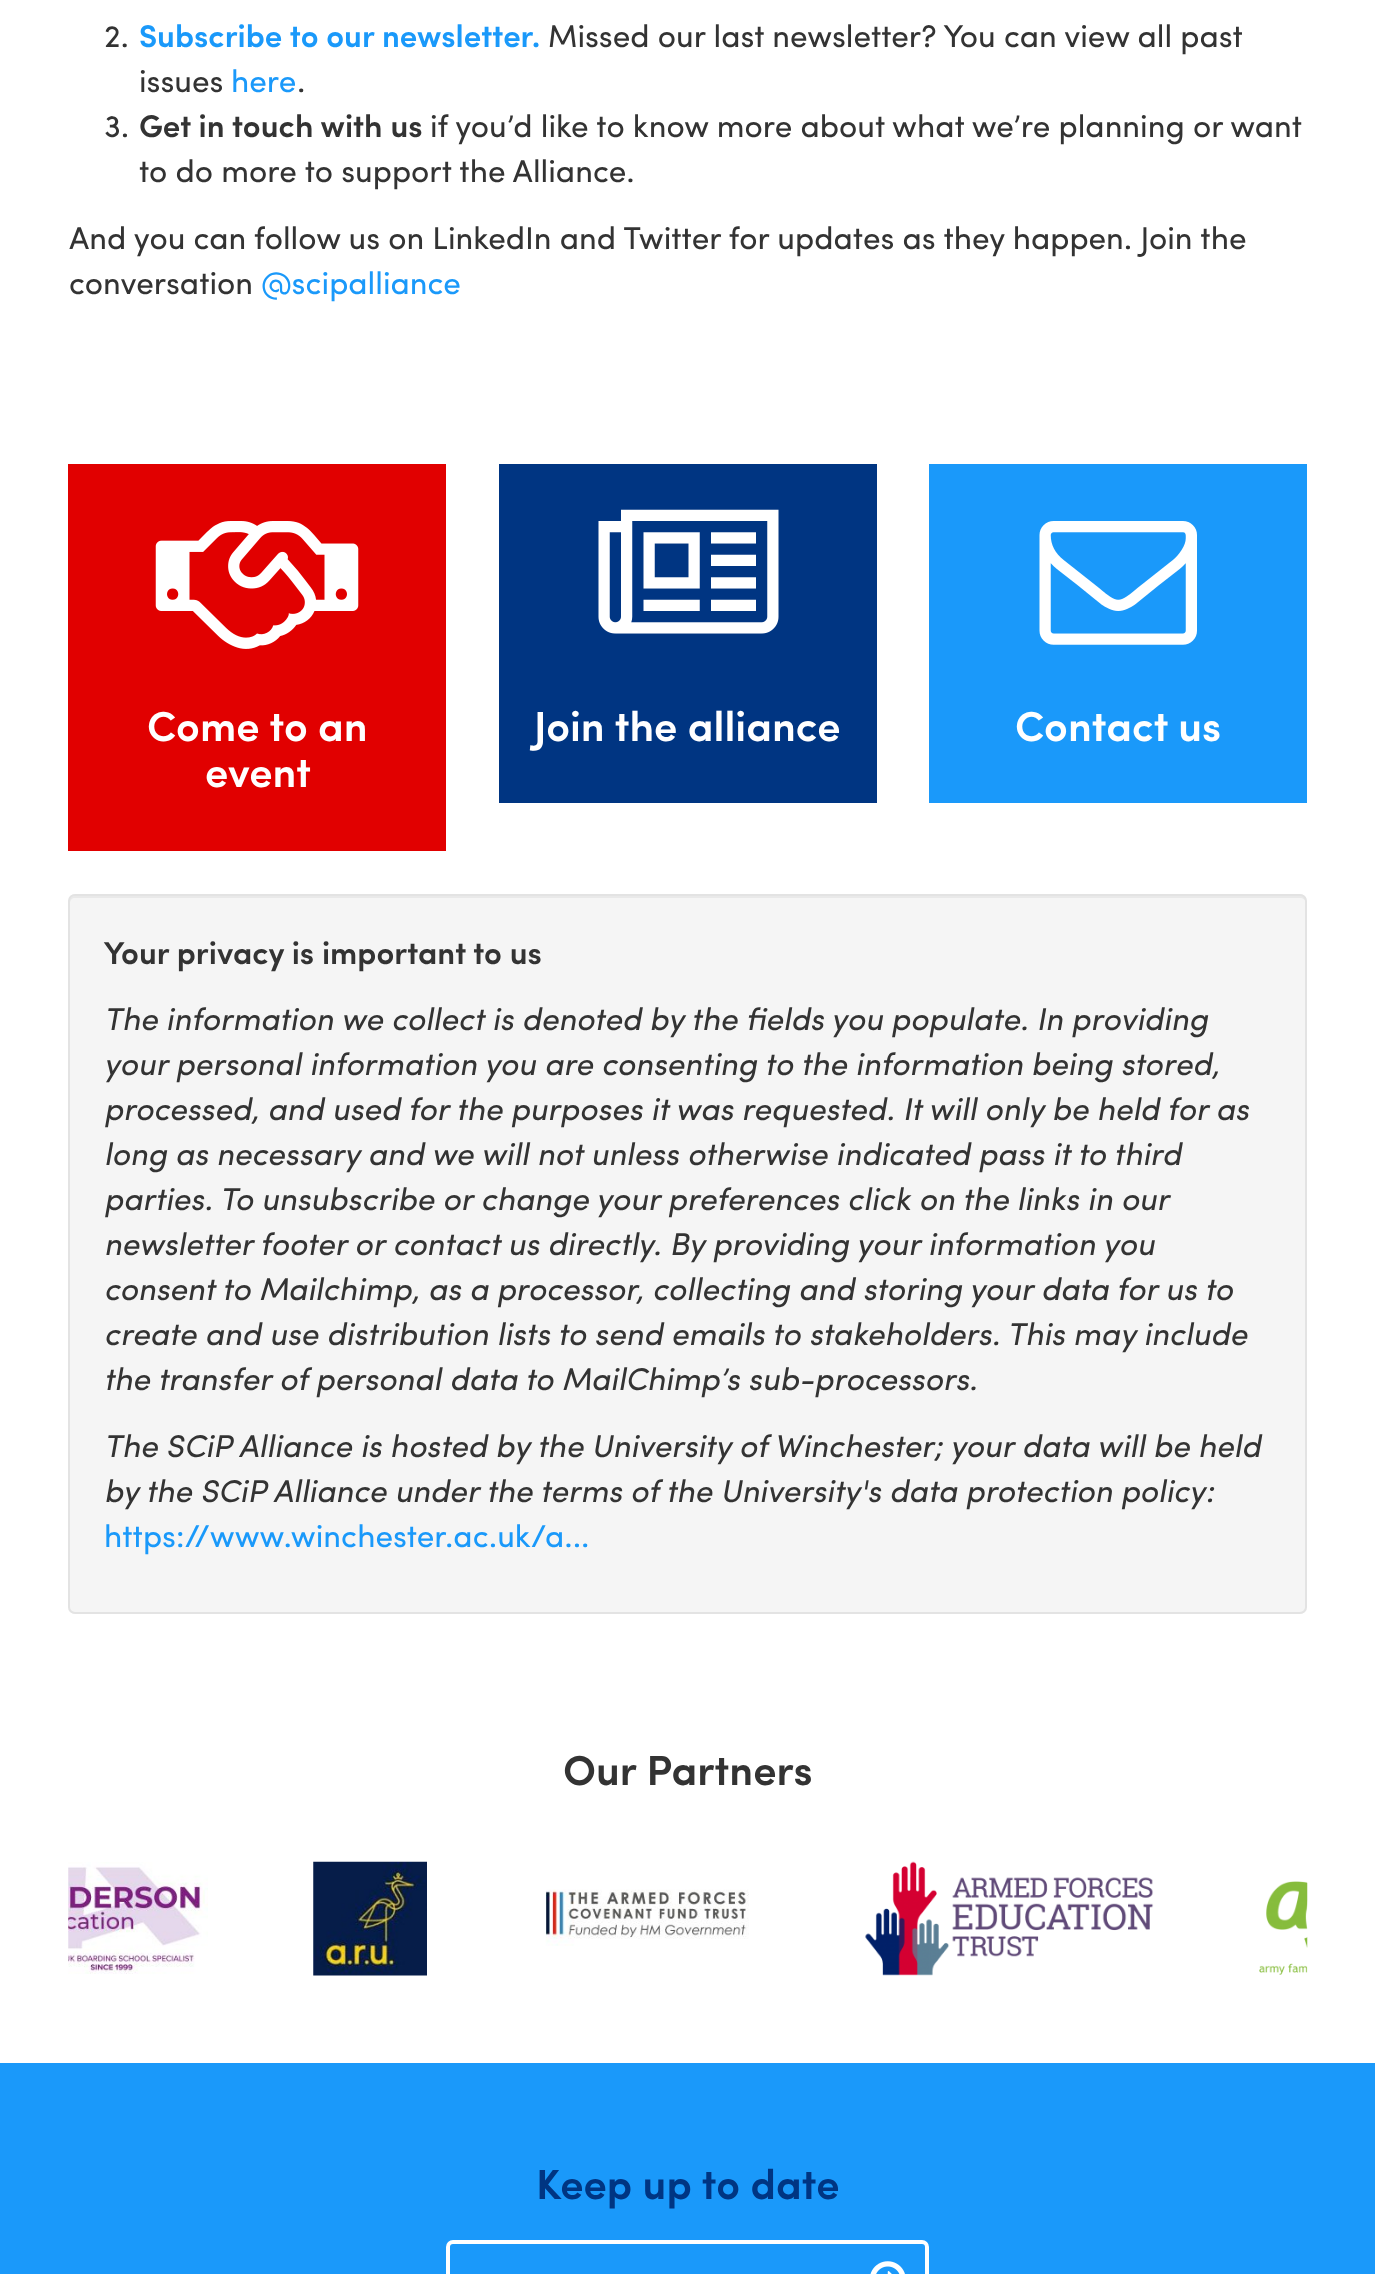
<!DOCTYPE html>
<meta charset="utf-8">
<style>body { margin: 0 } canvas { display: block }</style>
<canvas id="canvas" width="1375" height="2274"></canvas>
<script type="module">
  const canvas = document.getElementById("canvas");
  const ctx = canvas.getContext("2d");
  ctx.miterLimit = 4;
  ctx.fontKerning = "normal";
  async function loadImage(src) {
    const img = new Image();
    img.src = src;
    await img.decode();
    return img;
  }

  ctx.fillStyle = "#ffffff";
  ctx.fillRect(0, 0, 1375, 2274);
  ctx.font = "31.5px Sofia";
  ctx.fillStyle = "#333333";
  ctx.fillText("2.", 104, 47);
  ctx.font = "600 31.5px Sofia";
  ctx.fillStyle = "#1a99fa";
  ctx.fillText("Subscribe to our newsletter.", 139, 47);
  ctx.font = "31.5px Sofia";
  ctx.fillStyle = "#333333";
  ctx.fillText("Missed our last newsletter? You can view all past", 548, 47);
  ctx.fillText("issues", 139, 92);
  ctx.fillStyle = "#1a99fa";
  ctx.fillText("here", 231, 92);
  ctx.fillStyle = "#333333";
  ctx.fillText(".", 297, 92);
  ctx.fillText("3.", 104, 137);
  ctx.font = "600 31.5px Sofia";
  ctx.fillText("Get in touch with us", 139, 137);
  ctx.font = "31.5px Sofia";
  ctx.fillText("if you’d like to know more about what we’re planning or want", 430, 137);
  ctx.fillText("to do more to support the Alliance.", 139, 182);
  ctx.fillText("And you can follow us on LinkedIn and Twitter for updates as they happen. Join the", 69, 249);
  ctx.fillText("conversation", 69, 294);
  ctx.fillStyle = "#1a99fa";
  ctx.fillText("@scipalliance", 261, 294);
  ctx.fillStyle = "#e10000";
  ctx.fillRect(68, 464, 378, 387);
  ctx.drawImage(await loadImage("img1.png"), 155, 521, 204, 128);
  ctx.font = "600 42px Sofia";
  ctx.fillStyle = "#ffffff";
  ctx.fillText("Come to an", 147, 741);
  ctx.fillText("event", 205, 787);
  ctx.fillStyle = "#003582";
  ctx.fillRect(499, 464, 378, 339);
  ctx.drawImage(await loadImage("img2.png"), 598, 509, 181, 125);
  ctx.fillStyle = "#ffffff";
  ctx.fillText("Join the alliance", 534, 741);
  ctx.fillStyle = "#1a99fa";
  ctx.fillRect(929, 464, 378, 339);
  ctx.drawImage(await loadImage("img3.png"), 1039, 521, 158, 124);
  ctx.fillStyle = "#ffffff";
  ctx.fillText("Contact us", 1015, 741);
  ctx.fillStyle = "#f5f5f5";
  ctx.beginPath();
  ctx.roundRect(68, 894, 1239, 720, 7);
  ctx.fill();
  ctx.fillStyle = "#e9e9e9";
  ctx.beginPath();
  ctx.moveTo(75, 898);
  ctx.lineTo(1300, 898);
  ctx.bezierCurveTo(1303, 898, 1306, 900, 1306, 903);
  ctx.lineTo(1306, 901);
  ctx.bezierCurveTo(1306, 898, 1304, 896, 1301, 896);
  ctx.lineTo(75, 896);
  ctx.bezierCurveTo(72, 896, 70, 898, 70, 901);
  ctx.lineTo(70, 903);
  ctx.bezierCurveTo(70, 900, 72, 898, 75, 898);
  ctx.closePath();
  ctx.fill();
  ctx.beginPath();
  ctx.roundRect(69, 895, 1237, 718, 6);
  ctx.strokeStyle = "#e3e3e3";
  ctx.lineWidth = 2;
  ctx.stroke();
  ctx.font = "600 31.5px Sofia";
  ctx.fillStyle = "#333333";
  ctx.fillText("Your privacy is important to us", 104, 964);
  ctx.font = "italic 31.5px Sofia";
  ctx.fillText("The information we collect is denoted by the fields you populate. In providing", 104, 1030);
  ctx.fillText("your personal information you are consenting to the information being stored,", 104, 1075);
  ctx.fillText("processed, and used for the purposes it was requested. It will only be held for as", 104, 1120);
  ctx.fillText("long as necessary and we will not unless otherwise indicated pass it to third", 104, 1165);
  ctx.fillText("parties. To unsubscribe or change your preferences click on the links in our", 104, 1210);
  ctx.fillText("newsletter footer or contact us directly. By providing your information you", 104, 1255);
  ctx.fillText("consent to Mailchimp, as a processor, collecting and storing your data for us to", 104, 1300);
  ctx.fillText("create and use distribution lists to send emails to stakeholders. This may include", 104, 1345);
  ctx.fillText("the transfer of personal data to MailChimp’s sub-processors.", 104, 1390);
  ctx.fillText("The SCiP Alliance is hosted by the University of Winchester; your data will be held", 104, 1457);
  ctx.fillText("by the SCiP Alliance under the terms of the University's data protection policy:", 104, 1502);
  ctx.font = "31.5px Sofia";
  ctx.fillStyle = "#1a99fa";
  ctx.fillText("https://www.winchester.ac.uk/a...", 104, 1547);
  ctx.font = "600 42px Sofia";
  ctx.fillStyle = "#333333";
  ctx.fillText("Our Partners", 563, 1785);
  ctx.drawImage(await loadImage("img4.png"), 68, 1862, 140, 112);
  ctx.drawImage(await loadImage("img5.png"), 313, 1861, 114, 115);
  ctx.drawImage(await loadImage("img6.png"), 545, 1889, 204, 57);
  ctx.drawImage(await loadImage("img7.png"), 865, 1861, 289, 115);
  ctx.drawImage(await loadImage("img8.png"), 1259, 1881, 49, 94);
  ctx.fillStyle = "#1a99fa";
  ctx.fillRect(0, 2063, 1375, 211);
  ctx.fillStyle = "#003582";
  ctx.fillText("Keep up to date", 536, 2199);
  ctx.beginPath();
  ctx.roundRect(448, 2242, 479, 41, 5);
  ctx.strokeStyle = "#ffffff";
  ctx.lineWidth = 4;
  ctx.stroke();
  ctx.drawImage(await loadImage("img9.png"), 870, 2261, 35, 13);
</script>
